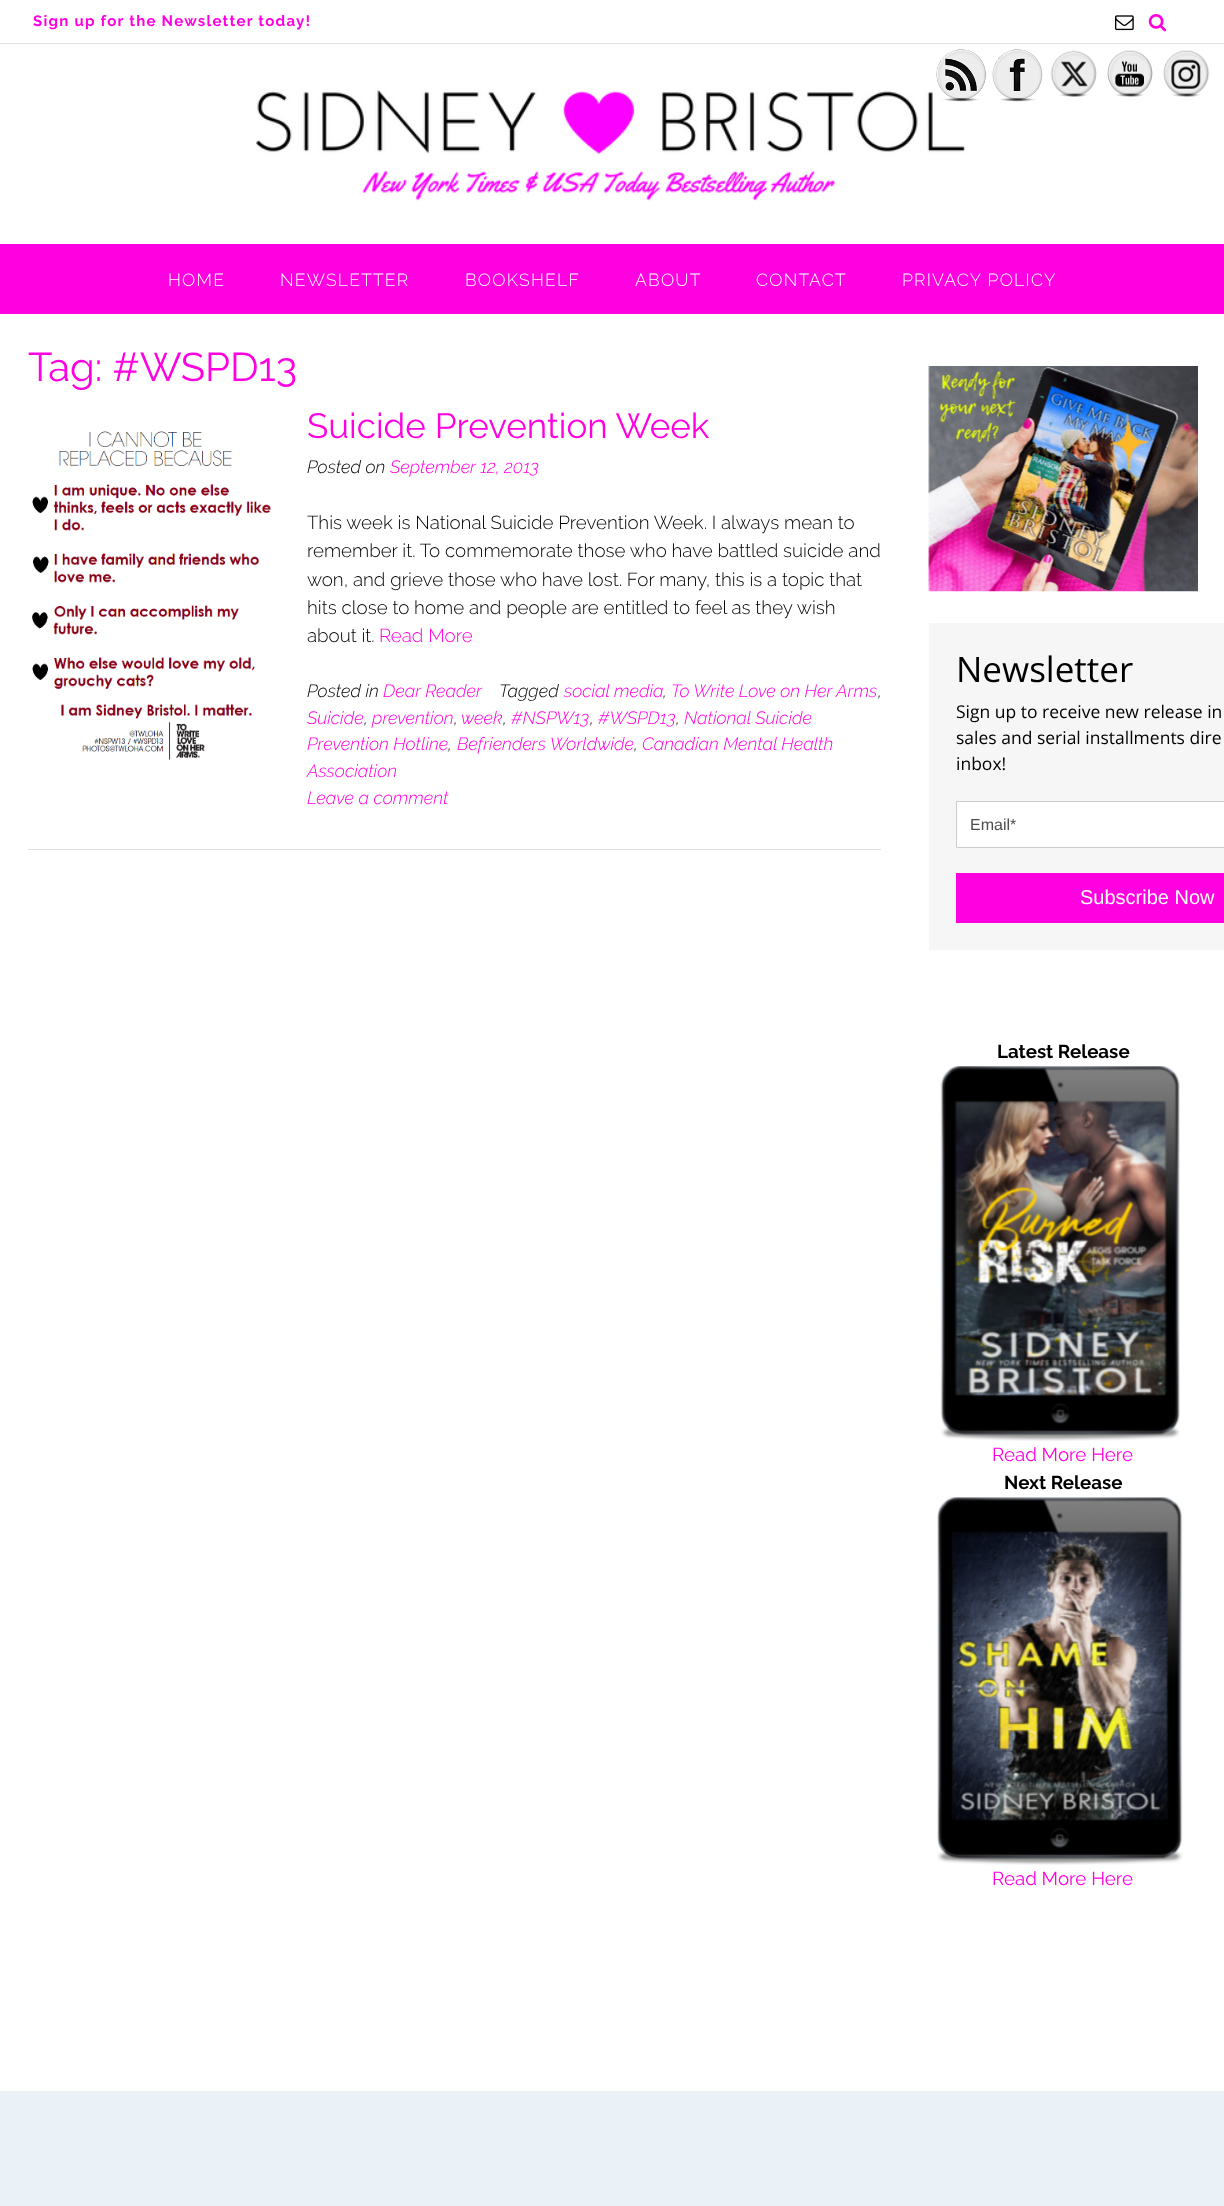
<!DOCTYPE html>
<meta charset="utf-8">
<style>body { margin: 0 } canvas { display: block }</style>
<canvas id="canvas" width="1224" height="2206"></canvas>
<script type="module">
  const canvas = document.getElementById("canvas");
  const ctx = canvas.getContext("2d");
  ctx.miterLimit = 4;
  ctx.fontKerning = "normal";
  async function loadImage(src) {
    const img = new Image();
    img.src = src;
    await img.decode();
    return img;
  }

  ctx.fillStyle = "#ffffff";
  ctx.fillRect(0, 0, 1224, 2206);
  ctx.fillStyle = "#e0e0e0";
  ctx.fillRect(0, 43, 1224, 1);
  ctx.letterSpacing = "1.25px";
  ctx.font = "bold 15px Raleway";
  ctx.fillStyle = "#ff00e1";
  ctx.fillText("Sign up for the Newsletter today!", 33, 26);
  ctx.drawImage(await loadImage("img1.png"), 1115, 15, 19, 16);
  ctx.drawImage(await loadImage("img2.png"), 1148, 14, 19, 18);
  ctx.drawImage(await loadImage("img3.png"), 256, 90, 710, 111);
  ctx.fillRect(0, 244, 1224, 70);
  ctx.font = "300 17.5px Raleway";
  ctx.fillStyle = "#ffffff";
  ctx.fillText("HOME", 168, 286);
  ctx.fillText("NEWSLETTER", 280, 286);
  ctx.fillText("BOOKSHELF", 465, 286);
  ctx.fillText("ABOUT", 635, 286);
  ctx.fillText("CONTACT", 756, 286);
  ctx.fillText("PRIVACY POLICY", 902, 286);
  ctx.drawImage(await loadImage("img4.png"), 936, 49, 51, 53);
  ctx.drawImage(await loadImage("img5.png"), 992, 49, 51, 53);
  ctx.drawImage(await loadImage("img6.png"), 1050, 50, 47, 47);
  ctx.drawImage(await loadImage("img7.png"), 1107, 50, 46, 47);
  ctx.drawImage(await loadImage("img8.png"), 1163, 50, 47, 47);
  ctx.letterSpacing = "0px";
  ctx.font = "40px Raleway";
  ctx.fillStyle = "#ff00e1";
  ctx.fillText("Tag: #WSPD13", 28, 381);
  ctx.fillStyle = "#e0e0e0";
  ctx.fillRect(28, 849, 853, 1);
  ctx.drawImage(await loadImage("img9.png"), 32, 431, 239, 329);
  ctx.font = "35px Raleway";
  ctx.fillStyle = "#ff00e1";
  ctx.fillText("Suicide Prevention Week", 307, 438);
  ctx.font = "italic 300 17.75px Raleway";
  ctx.fillStyle = "#000000";
  ctx.fillText("Posted on", 307, 473);
  ctx.fillStyle = "#ff00e1";
  ctx.fillText("September 12, 2013", 390, 473);
  ctx.font = "300 18.75px Raleway";
  ctx.fillStyle = "#000000";
  ctx.fillText("This week is National Suicide Prevention Week. I always mean to", 307, 529);
  ctx.fillText("remember it. To commemorate those who have battled suicide and", 307, 557);
  ctx.fillText("won, and grieve those who have lost. For many, this is a topic that", 307, 586);
  ctx.fillText("hits close to home and people are entitled to feel as they wish", 307, 614);
  ctx.fillText("about it.", 307, 642);
  ctx.fillStyle = "#ff00e1";
  ctx.fillText("Read More", 379, 642);
  ctx.font = "italic 300 17.75px Raleway";
  ctx.fillStyle = "#000000";
  ctx.fillText("Posted in", 307, 697);
  ctx.fillStyle = "#ff00e1";
  ctx.fillText("Dear Reader", 383, 697);
  ctx.fillStyle = "#000000";
  ctx.fillText("Tagged", 499, 697);
  ctx.fillStyle = "#ff00e1";
  ctx.fillText("social media", 564, 697);
  ctx.fillStyle = "#000000";
  ctx.fillText(",", 663, 697);
  ctx.fillStyle = "#ff00e1";
  ctx.fillText("To Write Love on Her Arms", 671, 697);
  ctx.fillStyle = "#000000";
  ctx.fillText(",", 878, 697);
  ctx.fillStyle = "#ff00e1";
  ctx.fillText("Suicide", 307, 724);
  ctx.fillStyle = "#000000";
  ctx.fillText(",", 364, 724);
  ctx.fillStyle = "#ff00e1";
  ctx.fillText("prevention", 372, 724);
  ctx.fillStyle = "#000000";
  ctx.fillText(",", 454, 724);
  ctx.fillStyle = "#ff00e1";
  ctx.fillText("week", 461, 724);
  ctx.fillStyle = "#000000";
  ctx.fillText(",", 503, 724);
  ctx.fillStyle = "#ff00e1";
  ctx.fillText("#NSPW13", 511, 724);
  ctx.fillStyle = "#000000";
  ctx.fillText(",", 590, 724);
  ctx.fillStyle = "#ff00e1";
  ctx.fillText("#WSPD13", 598, 724);
  ctx.fillStyle = "#000000";
  ctx.fillText(",", 676, 724);
  ctx.fillStyle = "#ff00e1";
  ctx.fillText("National Suicide", 684, 724);
  ctx.fillText("Prevention Hotline", 307, 750);
  ctx.fillStyle = "#000000";
  ctx.fillText(",", 448, 750);
  ctx.fillStyle = "#ff00e1";
  ctx.fillText("Befrienders Worldwide", 457, 750);
  ctx.fillStyle = "#000000";
  ctx.fillText(",", 634, 750);
  ctx.fillStyle = "#ff00e1";
  ctx.fillText("Canadian Mental Health", 642, 750);
  ctx.fillText("Association", 307, 777);
  ctx.fillText("Leave a comment", 307, 804);
  ctx.drawImage(await loadImage("img10.png"), 928, 366, 270, 226);
  ctx.fillStyle = "#f6f6f6";
  ctx.fillRect(929, 623, 295, 327);
  ctx.font = "35px Open Sans";
  ctx.fillStyle = "#000000";
  ctx.fillText("Newsletter", 956, 682);
  ctx.font = "17.5px Open Sans";
  ctx.fillText("Sign up to receive new release in", 956, 718);
  ctx.fillText("sales and serial installments dire", 956, 744);
  ctx.fillText("inbox!", 956, 770);
  ctx.fillStyle = "#ffffff";
  ctx.beginPath();
  ctx.rect(956.5, 801.5, 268, 46);
  ctx.fill();
  ctx.strokeStyle = "#cccccc";
  ctx.stroke();
  ctx.font = "16px Liberation Sans";
  ctx.fillStyle = "#4d4d4d";
  ctx.fillText("Email*", 970, 830);
  ctx.fillStyle = "#ff00e1";
  ctx.fillRect(956, 873, 268, 50);
  ctx.font = "20px Liberation Sans";
  ctx.fillStyle = "#ffffff";
  ctx.fillText("Subscribe Now", 1080, 904);
  ctx.font = "bold 18.75px Raleway";
  ctx.fillStyle = "#000000";
  ctx.fillText("Latest Release", 997, 1058);
  ctx.drawImage(await loadImage("img11.png"), 940, 1066, 240, 375);
  ctx.font = "18.75px Raleway";
  ctx.fillStyle = "#ff00e1";
  ctx.fillText("Read More Here", 992, 1461);
  ctx.font = "bold 18.75px Raleway";
  ctx.fillStyle = "#000000";
  ctx.fillText("Next Release", 1004, 1489);
  ctx.drawImage(await loadImage("img12.png"), 937, 1497, 246, 368);
  ctx.font = "18.75px Raleway";
  ctx.fillStyle = "#ff00e1";
  ctx.fillText("Read More Here", 992, 1885);
  ctx.fillStyle = "#eaf1f7";
  ctx.fillRect(0, 2091, 1224, 115);
</script>
